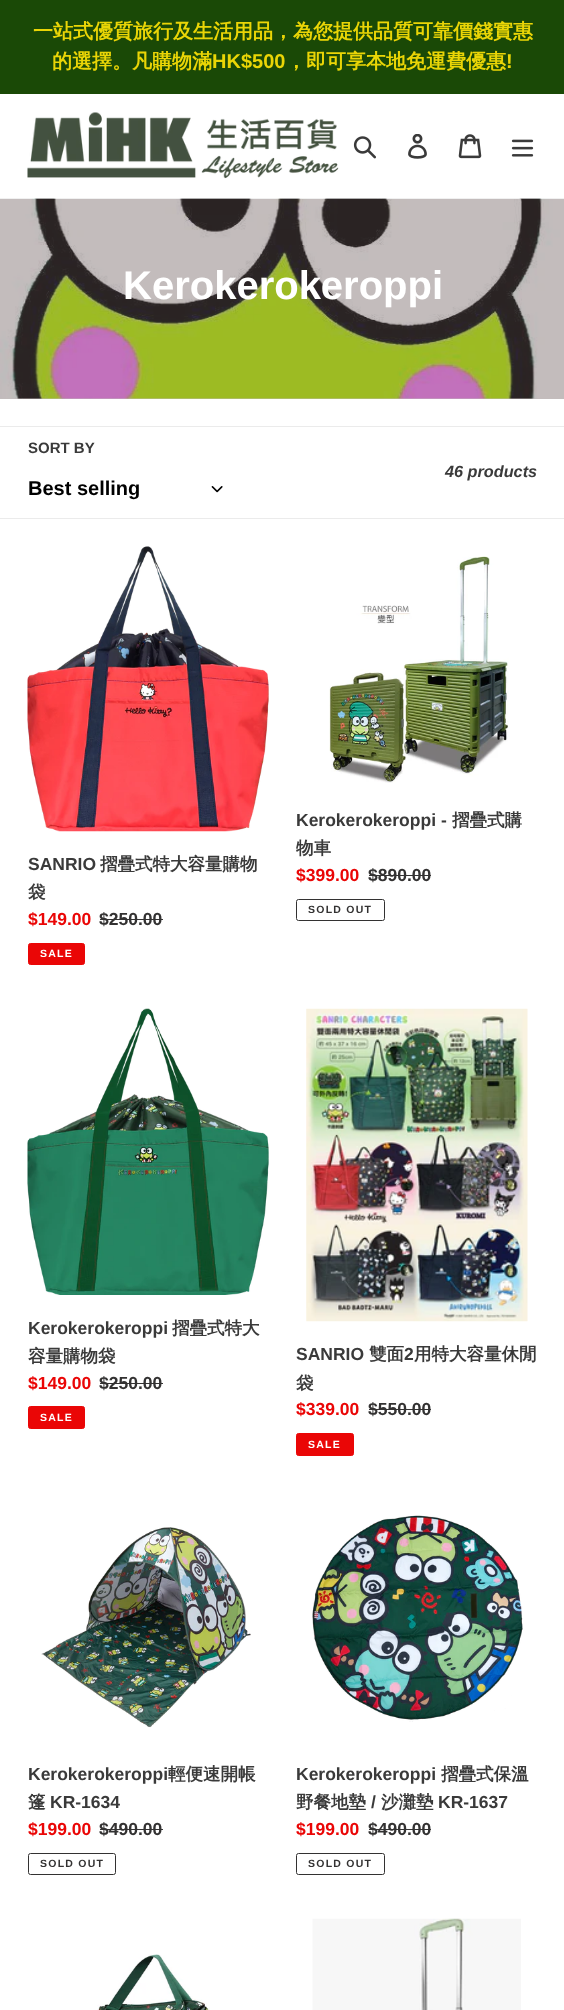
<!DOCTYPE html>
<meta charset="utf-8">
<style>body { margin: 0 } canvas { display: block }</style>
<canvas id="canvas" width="564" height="2010"></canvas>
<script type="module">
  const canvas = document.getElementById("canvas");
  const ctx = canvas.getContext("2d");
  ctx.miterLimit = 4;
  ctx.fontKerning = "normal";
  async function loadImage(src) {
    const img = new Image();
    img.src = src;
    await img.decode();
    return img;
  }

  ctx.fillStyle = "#ffffff";
  ctx.fillRect(0, 0, 564, 2010);
  ctx.fillStyle = "#c3bcbc";
  ctx.fillRect(0, 398, 564, 1);
  ctx.fillStyle = "#1a4906";
  ctx.fillRect(0, 0, 564, 94);
  ctx.font = "bold 20px WenQuanYi Zen Hei";
  ctx.fillStyle = "#ead506";
  ctx.fillText("一站式優質旅行及生活用品，為您提供品質可靠價錢實惠", 33, 38);
  ctx.fillText("的選擇。凡購物滿", 52, 68);
  ctx.font = "bold 20px Liberation Sans";
  ctx.fillText("HK$500", 212, 68);
  ctx.font = "bold 20px WenQuanYi Zen Hei";
  ctx.fillText("，即可享本地免運費優惠", 286, 68);
  ctx.font = "bold 20px Liberation Sans";
  ctx.fillText("!", 506, 68);
  ctx.fillStyle = "#ebebeb";
  ctx.fillRect(0, 198, 564, 1);
  ctx.drawImage(await loadImage("img1.png"), 27, 112, 312, 67);
  ctx.drawImage(await loadImage("img2.png"), 353, 136, 23, 23);
  ctx.drawImage(await loadImage("img3.png"), 408, 134, 19, 25);
  ctx.drawImage(await loadImage("img4.png"), 458, 134, 24, 25);
  ctx.drawImage(await loadImage("img5.png"), 511, 139, 23, 18);
  ctx.drawImage(await loadImage("img6.png"), 0, 198, 564, 201);
  ctx.font = "bold 40px Liberation Sans";
  ctx.fillStyle = "#ffffff";
  ctx.fillText("Kerokerokeroppi", 123, 299);
  ctx.fillStyle = "#ebebeb";
  ctx.fillRect(0, 426, 564, 1);
  ctx.fillRect(0, 518, 564, 1);
  ctx.font = "bold 15px Liberation Sans";
  ctx.fillStyle = "#3a3a3a";
  ctx.fillText("SORT BY", 28, 453);
  ctx.font = "bold 20px Liberation Sans";
  ctx.fillStyle = "#000000";
  ctx.fillText("Best selling", 28, 495);
  ctx.drawImage(await loadImage("img7.png"), 211, 486, 12, 7);
  ctx.font = "italic bold 16.25px Liberation Sans";
  ctx.fillStyle = "#3a3a3a";
  ctx.fillText("46 products", 445, 477);
  ctx.drawImage(await loadImage("img8.png"), 27, 546, 242, 286);
  ctx.font = "bold 17.5px Liberation Sans";
  ctx.fillText("SANRIO", 28, 870);
  ctx.font = "bold 17.5px WenQuanYi Zen Hei";
  ctx.fillText("摺疊式特大容量購物", 100, 870);
  ctx.fillText("袋", 28, 898);
  ctx.font = "bold 17.5px Liberation Sans";
  ctx.fillStyle = "#ea0606";
  ctx.fillText("$149.00", 28, 925);
  ctx.fillStyle = "#333232";
  ctx.fillText("$250.00", 99, 925);
  ctx.fillRect(100, 919, 63, 1);
  ctx.fillStyle = "#ea0606";
  ctx.beginPath();
  ctx.roundRect(28.5, 943.5, 56, 21, 2);
  ctx.fill();
  ctx.strokeStyle = "#ea0606";
  ctx.stroke();
  ctx.letterSpacing = "1.25px";
  ctx.font = "bold 10.5px Liberation Sans";
  ctx.fillStyle = "#ffffff";
  ctx.fillText("SALE", 40, 957);
  ctx.drawImage(await loadImage("img9.png"), 329, 556, 180, 227);
  ctx.letterSpacing = "0px";
  ctx.font = "bold 17.5px Liberation Sans";
  ctx.fillStyle = "#3a3a3a";
  ctx.fillText("Kerokerokeroppi -", 296, 826);
  ctx.font = "bold 17.5px WenQuanYi Zen Hei";
  ctx.fillText("摺疊式購", 452, 826);
  ctx.fillText("物車", 296, 854);
  ctx.font = "bold 17.5px Liberation Sans";
  ctx.fillStyle = "#ea0606";
  ctx.fillText("$399.00", 296, 881);
  ctx.fillStyle = "#333232";
  ctx.fillText("$890.00", 368, 881);
  ctx.fillRect(369, 875, 62, 1);
  ctx.beginPath();
  ctx.roundRect(296.5, 899.5, 88, 21, 2);
  ctx.strokeStyle = "#333232";
  ctx.stroke();
  ctx.letterSpacing = "1.25px";
  ctx.font = "bold 10.5px Liberation Sans";
  ctx.fillText("SOLD OUT", 308, 913);
  ctx.drawImage(await loadImage("img10.png"), 27, 1008, 242, 287);
  ctx.letterSpacing = "0px";
  ctx.font = "bold 17.5px Liberation Sans";
  ctx.fillStyle = "#3a3a3a";
  ctx.fillText("Kerokerokeroppi", 28, 1334);
  ctx.font = "bold 17.5px WenQuanYi Zen Hei";
  ctx.fillText("摺疊式特大", 172, 1334);
  ctx.fillText("容量購物袋", 28, 1362);
  ctx.font = "bold 17.5px Liberation Sans";
  ctx.fillStyle = "#ea0606";
  ctx.fillText("$149.00", 28, 1389);
  ctx.fillStyle = "#333232";
  ctx.fillText("$250.00", 99, 1389);
  ctx.fillRect(100, 1383, 63, 1);
  ctx.fillStyle = "#ea0606";
  ctx.beginPath();
  ctx.roundRect(28.5, 1406.5, 56, 22, 2);
  ctx.fill();
  ctx.strokeStyle = "#ea0606";
  ctx.stroke();
  ctx.letterSpacing = "1.25px";
  ctx.font = "bold 10.5px Liberation Sans";
  ctx.fillStyle = "#ffffff";
  ctx.fillText("SALE", 40, 1421);
  ctx.drawImage(await loadImage("img11.png"), 306, 1008, 222, 314);
  ctx.letterSpacing = "0px";
  ctx.font = "bold 17.5px Liberation Sans";
  ctx.fillStyle = "#3a3a3a";
  ctx.fillText("SANRIO", 296, 1360);
  ctx.font = "bold 17.5px WenQuanYi Zen Hei";
  ctx.fillText("雙面", 369, 1360);
  ctx.font = "bold 17.5px Liberation Sans";
  ctx.fillText("2", 404, 1360);
  ctx.font = "bold 17.5px WenQuanYi Zen Hei";
  ctx.fillText("用特大容量休閒", 414, 1360);
  ctx.fillText("袋", 296, 1389);
  ctx.font = "bold 17.5px Liberation Sans";
  ctx.fillStyle = "#ea0606";
  ctx.fillText("$339.00", 296, 1415);
  ctx.fillStyle = "#333232";
  ctx.fillText("$550.00", 368, 1415);
  ctx.fillRect(369, 1409, 62, 1);
  ctx.fillStyle = "#ea0606";
  ctx.beginPath();
  ctx.roundRect(296.5, 1433.5, 57, 22, 2);
  ctx.fill();
  ctx.stroke();
  ctx.letterSpacing = "1.25px";
  ctx.font = "bold 10.5px Liberation Sans";
  ctx.fillStyle = "#ffffff";
  ctx.fillText("SALE", 308, 1448);
  ctx.drawImage(await loadImage("img12.png"), 41, 1527, 210, 201);
  ctx.letterSpacing = "0px";
  ctx.font = "bold 17.5px Liberation Sans";
  ctx.fillStyle = "#3a3a3a";
  ctx.fillText("Kerokerokeroppi", 28, 1780);
  ctx.font = "bold 17.5px WenQuanYi Zen Hei";
  ctx.fillText("輕便速開帳", 168, 1780);
  ctx.fillText("篷", 28, 1808);
  ctx.font = "bold 17.5px Liberation Sans";
  ctx.fillText("KR-1634", 50, 1808);
  ctx.fillStyle = "#ea0606";
  ctx.fillText("$199.00", 28, 1835);
  ctx.fillStyle = "#333232";
  ctx.fillText("$490.00", 99, 1835);
  ctx.fillRect(100, 1829, 63, 1);
  ctx.beginPath();
  ctx.roundRect(28.5, 1853.5, 87, 21, 2);
  ctx.strokeStyle = "#333232";
  ctx.stroke();
  ctx.letterSpacing = "1.25px";
  ctx.font = "bold 10.5px Liberation Sans";
  ctx.fillText("SOLD OUT", 40, 1867);
  ctx.drawImage(await loadImage("img13.png"), 312, 1515, 211, 207);
  ctx.letterSpacing = "0px";
  ctx.font = "bold 17.5px Liberation Sans";
  ctx.fillStyle = "#3a3a3a";
  ctx.fillText("Kerokerokeroppi", 296, 1780);
  ctx.font = "bold 17.5px WenQuanYi Zen Hei";
  ctx.fillText("摺疊式保溫", 441, 1780);
  ctx.fillText("野餐地墊", 296, 1808);
  ctx.font = "bold 17.5px Liberation Sans";
  ctx.fillText("/", 371, 1808);
  ctx.font = "bold 17.5px WenQuanYi Zen Hei";
  ctx.fillText("沙灘墊", 381, 1808);
  ctx.font = "bold 17.5px Liberation Sans";
  ctx.fillText("KR-1637", 438, 1808);
  ctx.fillStyle = "#ea0606";
  ctx.fillText("$199.00", 296, 1835);
  ctx.fillStyle = "#333232";
  ctx.fillText("$490.00", 368, 1835);
  ctx.fillRect(369, 1829, 62, 1);
  ctx.beginPath();
  ctx.roundRect(296.5, 1853.5, 88, 21, 2);
  ctx.stroke();
  ctx.letterSpacing = "1.25px";
  ctx.font = "bold 10.5px Liberation Sans";
  ctx.fillText("SOLD OUT", 308, 1867);
  ctx.drawImage(await loadImage("img14.png"), 97, 1954, 113, 56);
  ctx.drawImage(await loadImage("img15.png"), 312, 1918, 209, 92);
</script>
